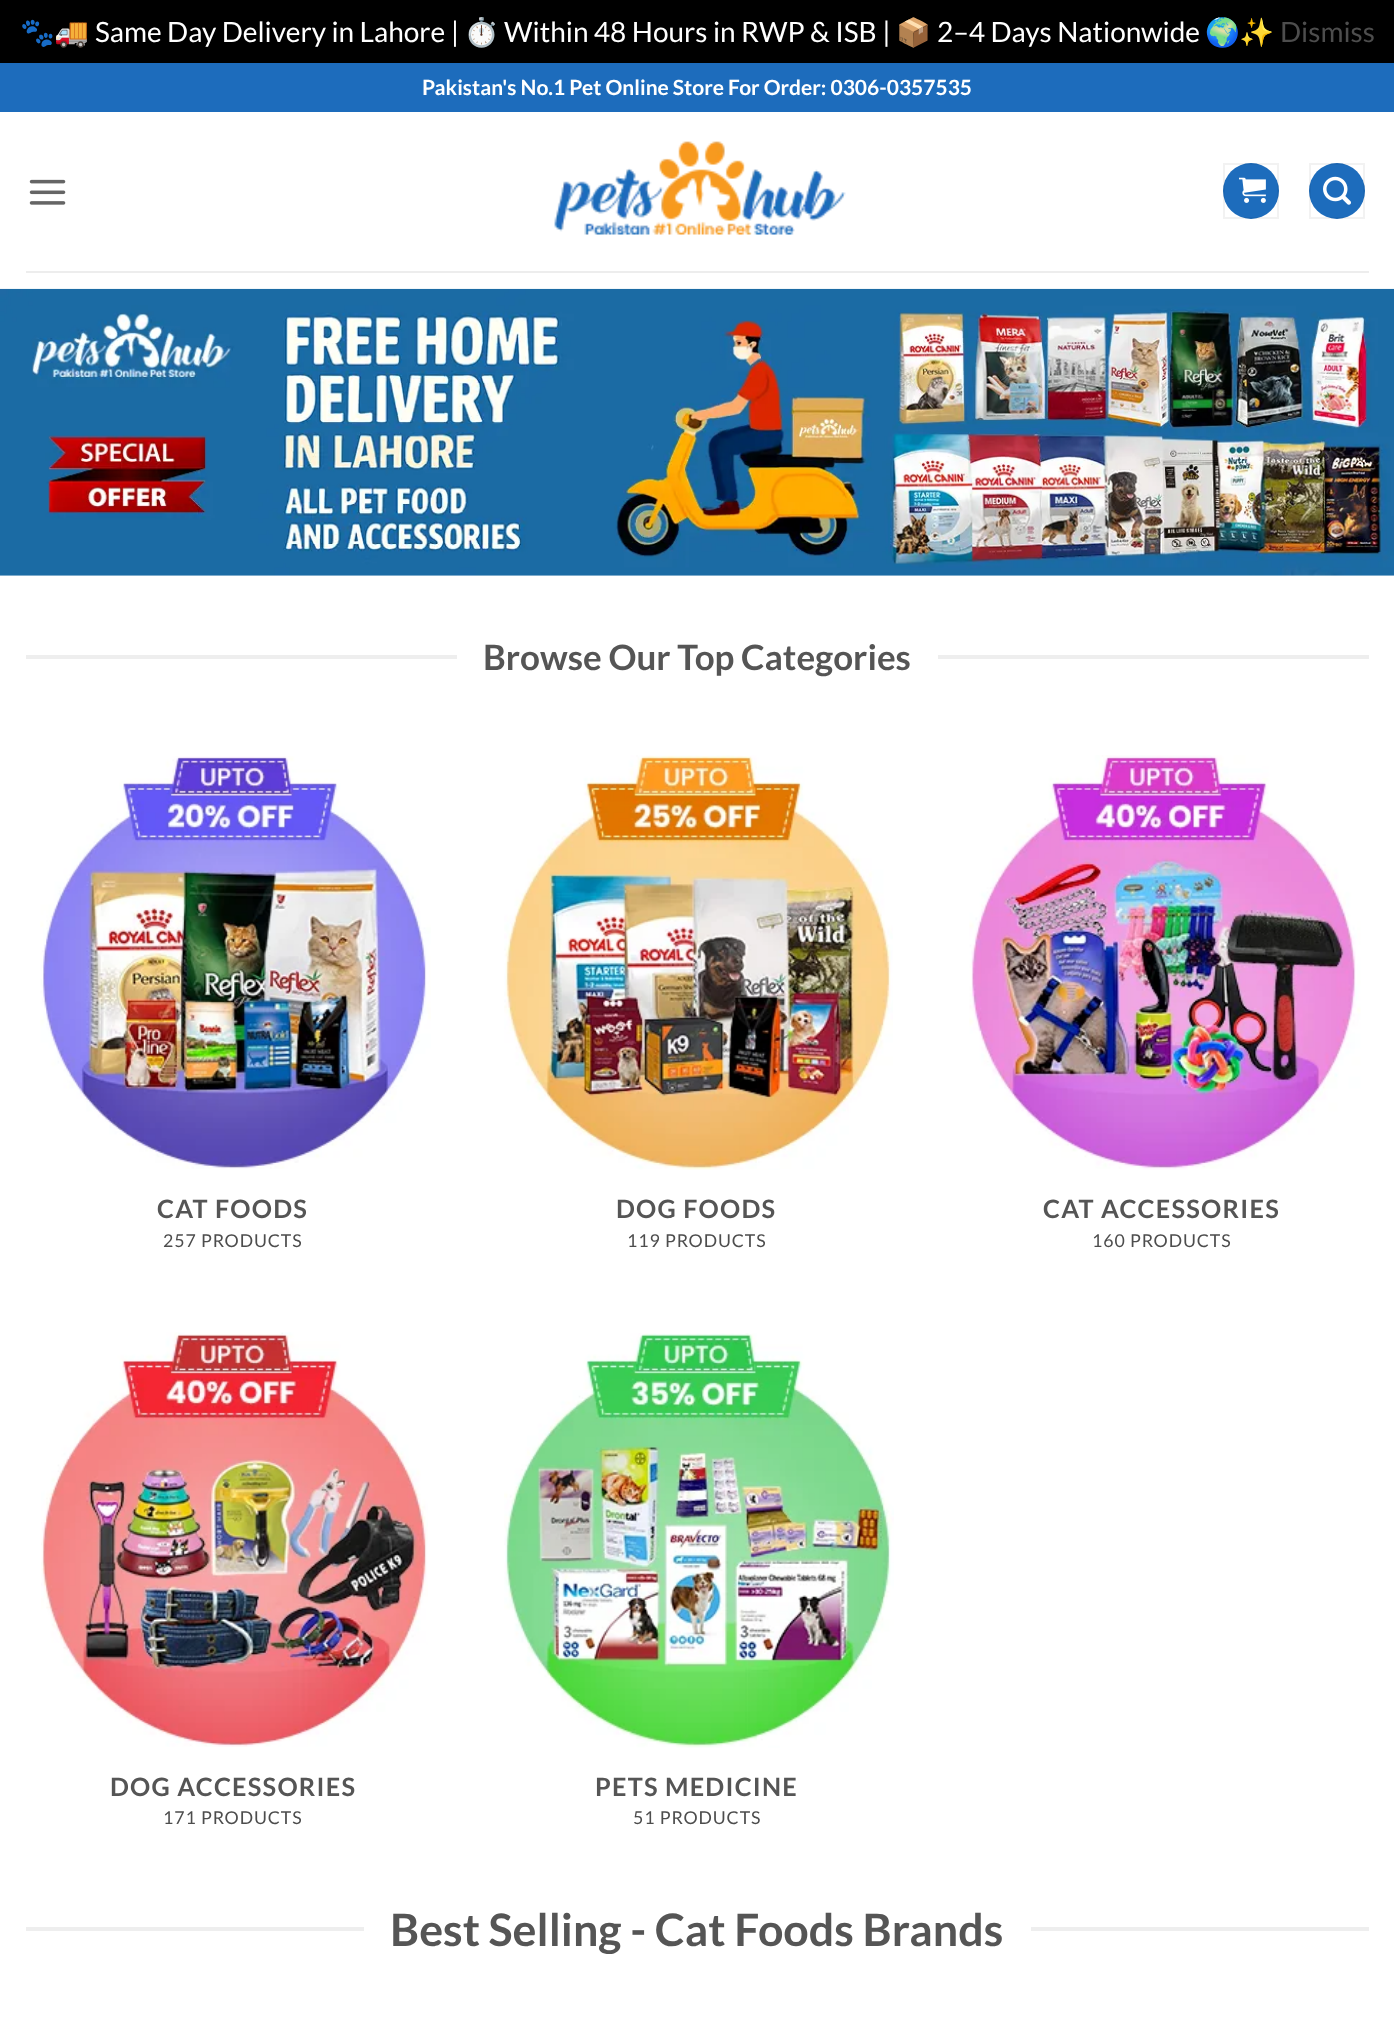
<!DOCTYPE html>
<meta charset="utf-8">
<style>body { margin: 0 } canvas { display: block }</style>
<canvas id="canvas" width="1394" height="2041"></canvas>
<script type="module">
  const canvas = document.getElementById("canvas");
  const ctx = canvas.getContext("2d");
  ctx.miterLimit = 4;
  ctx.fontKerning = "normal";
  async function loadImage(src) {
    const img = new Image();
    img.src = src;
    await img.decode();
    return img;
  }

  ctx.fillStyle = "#000000";
  ctx.fillRect(0, 0, 1394, 2041);
  ctx.font = "28px Noto Color Emoji";
  ctx.fillStyle = "#ffffff";
  ctx.fillText("🐾🚚", 20, 42);
  ctx.font = "28px Lato";
  ctx.fillText("Same Day Delivery in Lahore |", 95, 42);
  ctx.font = "28px Noto Color Emoji";
  ctx.fillText("⏱️", 464, 42);
  ctx.font = "28px Lato";
  ctx.fillText("Within 48 Hours in RWP & ISB |", 504, 42);
  ctx.font = "28px Noto Color Emoji";
  ctx.fillText("📦", 896, 42);
  ctx.font = "28px Lato";
  ctx.fillText("2–4 Days Nationwide", 937, 42);
  ctx.font = "28px Noto Color Emoji";
  ctx.fillText("🌍✨", 1205, 42);
  ctx.font = "28px Lato";
  ctx.fillStyle = "#4d4d4d";
  ctx.fillText("Dismiss", 1280, 42);
  ctx.fillStyle = "#ffffff";
  ctx.fillRect(0, 112, 1394, 1929);
  ctx.fillStyle = "#1d6cbc";
  ctx.fillRect(0, 63, 1394, 49);
  ctx.font = "bold 21px Lato";
  ctx.fillStyle = "#ffffff";
  ctx.fillText("Pakistan's No.1 Pet Online Store For Order: 0306-0357535", 422, 95);
  ctx.drawImage(await loadImage("img1.png"), 29, 179, 37, 26);
  ctx.drawImage(await loadImage("img2.png"), 554, 141, 292, 94);
  ctx.fillStyle = "#1d6cbc";
  ctx.beginPath();
  ctx.arc(1251, 191, 28, 0, Math.PI * 2);
  ctx.fill();
  ctx.strokeStyle = "rgba(0, 0, 0, 0.05)";
  ctx.lineWidth = 2;
  ctx.strokeRect(1224, 164, 54, 54);
  ctx.drawImage(await loadImage("img3.png"), 1239, 177, 27, 26);
  ctx.beginPath();
  ctx.arc(1337, 191, 28, 0, Math.PI * 2);
  ctx.fill();
  ctx.strokeRect(1310, 164, 54, 54);
  ctx.drawImage(await loadImage("img4.png"), 1323, 176, 28, 29);
  ctx.fillStyle = "#ededed";
  ctx.fillRect(26, 271, 1343, 2);
  ctx.drawImage(await loadImage("img5.png"), 0, 288, 1394, 288);
  ctx.fillStyle = "#eeeeee";
  ctx.fillRect(26, 655, 431, 4);
  ctx.font = "bold 35px Lato";
  ctx.fillStyle = "#555555";
  ctx.fillText("Browse Our Top Categories", 483, 670);
  ctx.fillStyle = "#eeeeee";
  ctx.fillRect(938, 655, 431, 4);
  ctx.drawImage(await loadImage("img6.png"), 40, 756, 391, 413);
  ctx.letterSpacing = "1.25px";
  ctx.font = "bold 25.25px Lato";
  ctx.fillStyle = "#555555";
  ctx.fillText("CAT FOODS", 157, 1218);
  ctx.letterSpacing = "0.9px";
  ctx.font = "17.75px Lato";
  ctx.fillStyle = "#4d4d4d";
  ctx.fillText("257 PRODUCTS", 163, 1247);
  ctx.drawImage(await loadImage("img7.png"), 504, 755, 389, 415);
  ctx.letterSpacing = "1.25px";
  ctx.font = "bold 25.25px Lato";
  ctx.fillStyle = "#555555";
  ctx.fillText("DOG FOODS", 616, 1218);
  ctx.letterSpacing = "0.9px";
  ctx.font = "17.75px Lato";
  ctx.fillStyle = "#4d4d4d";
  ctx.fillText("119 PRODUCTS", 627, 1247);
  ctx.drawImage(await loadImage("img8.png"), 969, 755, 392, 415);
  ctx.letterSpacing = "1.25px";
  ctx.font = "bold 25.25px Lato";
  ctx.fillStyle = "#555555";
  ctx.fillText("CAT ACCESSORIES", 1043, 1218);
  ctx.letterSpacing = "0.9px";
  ctx.font = "17.75px Lato";
  ctx.fillStyle = "#4d4d4d";
  ctx.fillText("160 PRODUCTS", 1092, 1247);
  ctx.drawImage(await loadImage("img9.png"), 41, 1332, 387, 415);
  ctx.letterSpacing = "1.25px";
  ctx.font = "bold 25.25px Lato";
  ctx.fillStyle = "#555555";
  ctx.fillText("DOG ACCESSORIES", 110, 1796);
  ctx.letterSpacing = "0.9px";
  ctx.font = "17.75px Lato";
  ctx.fillStyle = "#4d4d4d";
  ctx.fillText("171 PRODUCTS", 163, 1824);
  ctx.drawImage(await loadImage("img10.png"), 504, 1333, 390, 415);
  ctx.letterSpacing = "1.25px";
  ctx.font = "bold 25.25px Lato";
  ctx.fillStyle = "#555555";
  ctx.fillText("PETS MEDICINE", 595, 1796);
  ctx.letterSpacing = "0.9px";
  ctx.font = "17.75px Lato";
  ctx.fillStyle = "#4d4d4d";
  ctx.fillText("51 PRODUCTS", 633, 1824);
  ctx.fillStyle = "#eeeeee";
  ctx.fillRect(26, 1927, 338, 4);
  ctx.letterSpacing = "0px";
  ctx.font = "bold 44.75px Lato";
  ctx.fillStyle = "#555555";
  ctx.fillText("Best Selling - Cat Foods Brands", 390, 1946);
  ctx.fillStyle = "#eeeeee";
  ctx.fillRect(1031, 1927, 338, 4);
</script>
